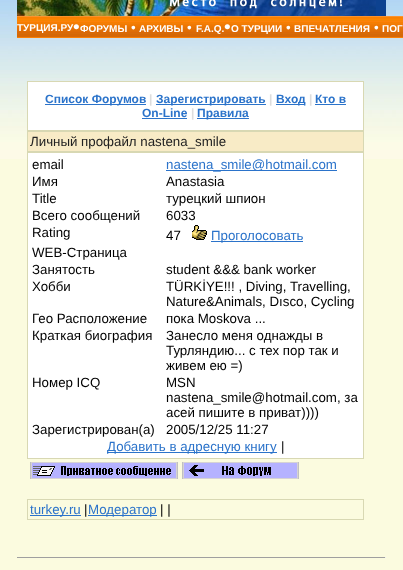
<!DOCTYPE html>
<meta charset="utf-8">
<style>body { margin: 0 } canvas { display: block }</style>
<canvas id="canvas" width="403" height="570"></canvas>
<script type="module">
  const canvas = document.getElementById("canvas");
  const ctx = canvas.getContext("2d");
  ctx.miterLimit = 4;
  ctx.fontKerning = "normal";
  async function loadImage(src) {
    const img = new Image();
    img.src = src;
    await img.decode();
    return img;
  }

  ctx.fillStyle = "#fbfbdf";
  ctx.fillRect(0, 0, 403, 570);
  ctx.drawImage(await loadImage("img1.png"), 0, 0, 403, 159);
  ctx.drawImage(await loadImage("img2.png"), 17, 0, 359, 16);
  ctx.drawImage(await loadImage("img3.png"), 167, 0, 176, 10);
  ctx.fillStyle = "#0d4290";
  ctx.fillRect(376, 0, 10, 16);
  ctx.drawImage(await loadImage("img4.png"), 17, 16, 386, 22);
  ctx.font = "bold 10px Liberation Sans";
  ctx.fillStyle = "#ffffff";
  ctx.fillText("ТУРЦИЯ.РУ", 17, 31);
  ctx.font = "19px Liberation Sans";
  ctx.fillText("•", 73, 33);
  ctx.font = "bold 10px Liberation Sans";
  ctx.fillText("ФОРУМЫ", 80, 32);
  ctx.font = "13.3px Liberation Sans";
  ctx.fillText("•", 131, 32);
  ctx.font = "bold 10px Liberation Sans";
  ctx.fillText("АРХИВЫ", 139, 32);
  ctx.font = "13.3px Liberation Sans";
  ctx.fillText("•", 187, 32);
  ctx.font = "bold 10px Liberation Sans";
  ctx.fillText("F.A.Q.", 196, 32);
  ctx.font = "19px Liberation Sans";
  ctx.fillText("•", 224, 33);
  ctx.font = "bold 10px Liberation Sans";
  ctx.fillText("О ТУРЦИИ", 231, 32);
  ctx.font = "13.3px Liberation Sans";
  ctx.fillText("•", 286, 32);
  ctx.font = "bold 10px Liberation Sans";
  ctx.fillText("ВПЕЧАТЛЕНИЯ", 294, 32);
  ctx.font = "13.3px Liberation Sans";
  ctx.fillText("•", 374, 32);
  ctx.font = "bold 10px Liberation Sans";
  ctx.fillText("ПОГ", 382, 32);
  ctx.fillStyle = "#d8d8b3";
  ctx.fillRect(27, 81, 337, 378);
  ctx.fillStyle = "#ffffff";
  ctx.fillRect(28, 82, 335, 48);
  ctx.fillStyle = "#2b73ca";
  ctx.fillRect(45, 104, 101, 1);
  ctx.font = "bold 12px Liberation Sans";
  ctx.fillText("Список Форумов", 45, 103);
  ctx.fillStyle = "#dddddd";
  ctx.fillText("|", 149, 103);
  ctx.fillStyle = "#2b73ca";
  ctx.fillRect(156, 104, 110, 1);
  ctx.fillText("Зарегистрировать", 156, 103);
  ctx.fillStyle = "#dddddd";
  ctx.fillText("|", 269, 103);
  ctx.fillStyle = "#2b73ca";
  ctx.fillRect(276, 104, 29, 1);
  ctx.fillText("Вход", 276, 103);
  ctx.fillStyle = "#dddddd";
  ctx.fillText("|", 309, 103);
  ctx.fillStyle = "#2b73ca";
  ctx.fillText("Кто в", 315, 103);
  ctx.fillRect(315, 104, 31, 1);
  ctx.fillText("On-Line", 142, 117);
  ctx.fillRect(142, 118, 45, 1);
  ctx.fillStyle = "#dddddd";
  ctx.fillText("|", 191, 117);
  ctx.fillStyle = "#2b73ca";
  ctx.fillRect(197, 118, 52, 1);
  ctx.fillText("Правила", 197, 117);
  ctx.fillStyle = "#f8ebc6";
  ctx.fillRect(28, 132, 335, 19);
  ctx.font = "13.3px Liberation Sans";
  ctx.fillStyle = "#222222";
  ctx.fillText("Личный профайл nastena_smile", 30, 146);
  ctx.fillStyle = "#ffffff";
  ctx.fillRect(28, 153, 335, 305);
  ctx.fillStyle = "#000000";
  ctx.fillText("email", 32, 169);
  ctx.fillStyle = "#2b73ca";
  ctx.fillRect(166, 170, 171, 1);
  ctx.fillText("nastena_smile@hotmail.com", 166, 169);
  ctx.fillStyle = "#000000";
  ctx.fillText("Имя", 32, 186);
  ctx.fillText("Anastasia", 166, 186);
  ctx.fillText("Title", 32, 203);
  ctx.fillText("турецкий шпион", 166, 203);
  ctx.fillText("Всего сообщений", 32, 220);
  ctx.fillText("6033", 166, 220);
  ctx.fillText("Rating", 32, 237);
  ctx.fillText("47", 166, 240);
  ctx.drawImage(await loadImage("img5.png"), 192, 225, 15, 15);
  ctx.fillStyle = "#2b73ca";
  ctx.fillRect(211, 241, 92, 1);
  ctx.fillText("Проголосовать", 211, 240);
  ctx.fillStyle = "#000000";
  ctx.fillText("WEB-Страница", 32, 257);
  ctx.fillText("Занятость", 32, 274);
  ctx.fillText("student &&& bank worker", 166, 274);
  ctx.fillText("Хобби", 32, 291);
  ctx.fillText("TÜRKİYE!!! , Diving, Travelling,", 166, 291);
  ctx.fillText("Nature&Animals, Dısco, Cycling", 166, 306);
  ctx.fillText("Гео Расположение", 32, 323);
  ctx.fillText("пока Moskova ...", 166, 323);
  ctx.fillText("Краткая биография", 32, 340);
  ctx.fillText("Занесло меня однажды в", 166, 340);
  ctx.fillText("Турляндию... с тех пор так и", 166, 355);
  ctx.fillText("живем ею =)", 166, 370);
  ctx.fillText("Номер ICQ", 32, 387);
  ctx.fillText("MSN", 166, 387);
  ctx.fillText("nastena_smile@hotmail.com, за", 166, 402);
  ctx.fillText("асей пишите в приват))))", 166, 417);
  ctx.fillText("Зарегистрирован(а)", 32, 434);
  ctx.fillText("2005/12/25 11:27", 166, 434);
  ctx.fillStyle = "#2b73ca";
  ctx.fillRect(107, 452, 170, 1);
  ctx.fillText("Добавить в адресную книгу", 107, 451);
  ctx.fillStyle = "#000000";
  ctx.fillText("|", 281, 451);
  ctx.drawImage(await loadImage("img6.png"), 30, 462, 148, 17);
  ctx.drawImage(await loadImage("img7.png"), 182, 462, 117, 17);
  ctx.fillStyle = "#d8d8b3";
  ctx.fillRect(27, 499, 337, 21);
  ctx.fillStyle = "#fbfbdf";
  ctx.fillRect(28, 500, 335, 19);
  ctx.fillStyle = "#2b73ca";
  ctx.fillRect(30, 515, 51, 1);
  ctx.fillText("turkey.ru", 30, 514);
  ctx.fillStyle = "#000000";
  ctx.fillText("|", 84, 514);
  ctx.fillStyle = "#2b73ca";
  ctx.fillRect(88, 515, 69, 1);
  ctx.fillText("Модератор", 88, 514);
  ctx.fillStyle = "#000000";
  ctx.fillText("| |", 160, 514);
  ctx.fillStyle = "#9f9f9f";
  ctx.fillRect(17, 557, 369, 1);
  ctx.fillStyle = "#eeeeee";
  ctx.fillRect(385, 557, 1, 1);
</script>
